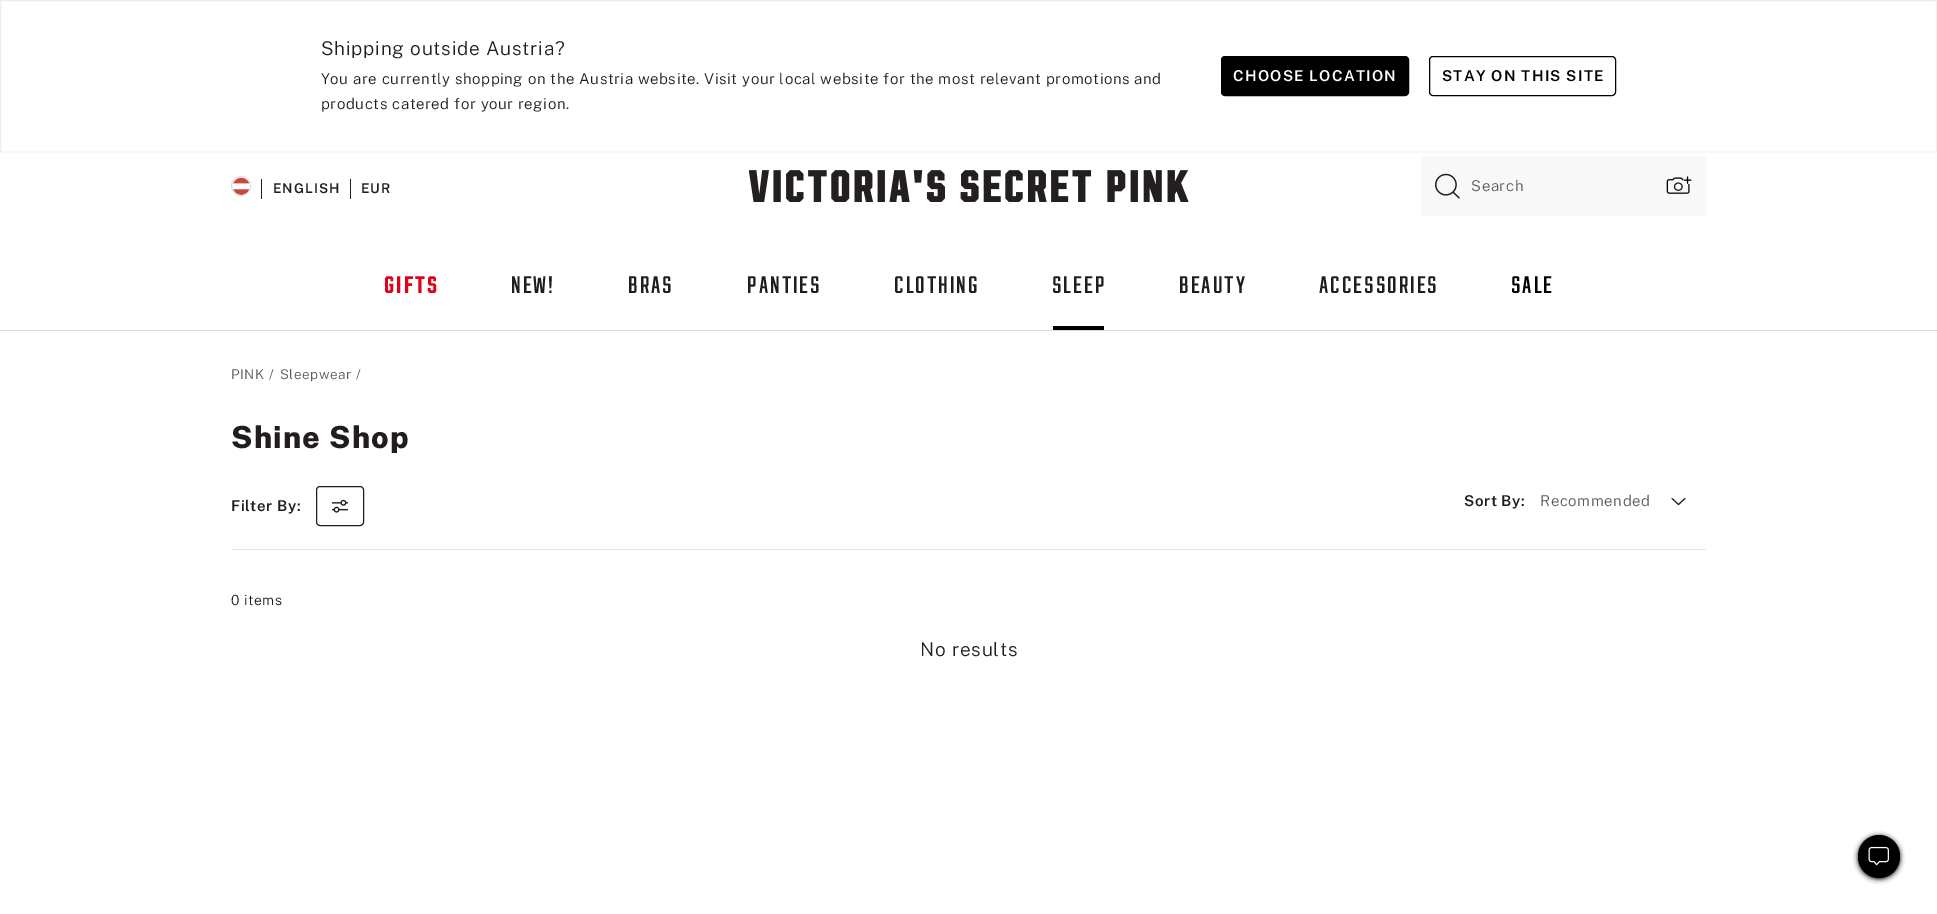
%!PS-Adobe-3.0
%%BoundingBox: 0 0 1937 914
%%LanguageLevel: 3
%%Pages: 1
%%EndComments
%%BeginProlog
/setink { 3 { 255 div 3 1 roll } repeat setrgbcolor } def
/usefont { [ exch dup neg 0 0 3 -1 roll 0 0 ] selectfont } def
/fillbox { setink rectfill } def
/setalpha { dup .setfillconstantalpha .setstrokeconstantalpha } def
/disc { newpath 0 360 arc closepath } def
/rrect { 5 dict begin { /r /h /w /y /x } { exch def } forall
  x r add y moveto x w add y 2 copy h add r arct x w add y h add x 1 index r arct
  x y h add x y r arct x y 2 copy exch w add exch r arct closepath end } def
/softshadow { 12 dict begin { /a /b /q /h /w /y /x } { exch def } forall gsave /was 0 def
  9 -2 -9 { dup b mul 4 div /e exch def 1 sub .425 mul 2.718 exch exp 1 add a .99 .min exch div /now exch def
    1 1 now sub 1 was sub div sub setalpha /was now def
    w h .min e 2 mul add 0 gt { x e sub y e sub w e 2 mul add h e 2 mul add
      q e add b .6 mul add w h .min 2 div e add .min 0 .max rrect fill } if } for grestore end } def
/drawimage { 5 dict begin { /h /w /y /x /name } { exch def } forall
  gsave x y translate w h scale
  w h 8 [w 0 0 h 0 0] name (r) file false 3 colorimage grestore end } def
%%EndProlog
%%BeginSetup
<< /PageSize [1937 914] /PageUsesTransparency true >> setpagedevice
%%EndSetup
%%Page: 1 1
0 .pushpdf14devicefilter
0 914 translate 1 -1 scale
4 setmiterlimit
0 0 1937 914 255 255 255 fillbox
0 0 1937 2 249 226 231 fillbox
255 255 255 setink
0 0 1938 153 2.5 rrect fill
245 245 246 setink
1.2 setlinewidth
1936.5 151.5 moveto 1935 152 lineto 2.5 152 lineto 1 151.5 lineto stroke
239 236 234 setink
1 151.5 moveto 0.5 150 lineto 0.5 2.5 lineto 0.5 1.5 1.5 0.5 2.5 0.5 curveto 1935 0.5 lineto 1936 0.5 1937 1.5 1937 2.5 curveto 1937 150 lineto 1936.5 151.5 lineto stroke
/PublicSans-Light 19 usefont
34 29 29 setink
321 55 moveto 0.75 0 (Shipping outside Austria?) ashow
/PublicSans-Light 15 usefont
321 84 moveto 0.6 0 (You are currently shopping on the Austria website. Visit your local website for the most relevant promotions and) ashow
321 109 moveto 0.6 0 (products catered for your region.) ashow
0 0 0 setink
1221.5 56.5 187 39 3.5 rrect gsave fill grestore
1 setlinewidth
stroke
/PublicSans-SemiBold 15 usefont
255 255 255 setink
1233 81 moveto 1.25 0 (CHOOSE LOCATION) ashow
0 0 0 setink
1429.5 56.5 186 39 3.5 rrect stroke
1442 81 moveto 1.25 0 (STAY ON THIS SITE) ashow
224 218 213 setink
241 186 9.5 disc stroke
(assets/img1.rgb) 233 177 17 18 drawimage
261 179 1 20 34 29 29 fillbox
/PublicSans-SemiBold 13.5 usefont
273 193 moveto 1 0 (ENGLISH) ashow
350 179 1 20 34 29 29 fillbox
361 193 moveto 1 0 (EUR) ashow
(assets/img2.rgb) 749 170 440 32 drawimage
249 248 249 setink
1421 156 285 60 2.5 rrect fill
(assets/img3.rgb) 1435 173 25 26 drawimage
/PublicSans-Light 15 usefont
96 88 88 setink
1471 191 moveto 0.6 0 (Search) ashow
(assets/img4.rgb) 1666 176 26 18 drawimage
/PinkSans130-Regular 24 usefont
225 1 28 setink
384 293 moveto 2 0 (GIFTS) ashow
/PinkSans-Medium 24 usefont
34 29 29 setink
511 293 moveto 2 0 (NEW!) ashow
628 293 moveto 2 0 (BRAS) ashow
747 293 moveto 2 0 (PANTIES) ashow
894 293 moveto 2 0 (CLOTHING) ashow
1052 293 moveto 2 0 (SLEEP) ashow
1053 326 51 4 0 0 0 fillbox
34 29 29 setink
1179 293 moveto 2 0 (BEAUTY) ashow
1319 293 moveto 2 0 (ACCESSORIES) ashow
0 0 0 setink
1511 293 moveto 2 0 (SALE) ashow
0 330 1937 1 224 218 213 fillbox
/PublicSans-Light 13.5 usefont
96 88 88 setink
231 379 moveto 0.5 0 (PINK) ashow
269 379 moveto 0.5 0 (/) ashow
280 379 moveto 0.5 0 (Sleepwear) ashow
356 379 moveto 0.5 0 (/) ashow
/PublicSans-ExtraBold 30.5 usefont
34 29 29 setink
231 448 moveto 1.25 0 (Shine Shop) ashow
231 549 1475 1 232 227 223 fillbox
/PublicSans-SemiBold 15 usefont
34 29 29 setink
231 511 moveto 0.6 0 (Filter By:) ashow
316.5 486.5 47 39 3.5 rrect stroke
(assets/img5.rgb) 332 499 16 14 drawimage
1464 506 moveto 0.6 0 (Sort By:) ashow
/PublicSans-Light 15 usefont
96 88 88 setink
1540 506 moveto 0.6 0 (Recommended) ashow
34 29 29 setink
1 setlinecap
1685 498.5 moveto 1678.5 504.5 lineto 1672 498.5 lineto stroke
/PublicSans-Light 14 usefont
231 605 moveto 0.5 0 (0 items) ashow
/PublicSans-Light 19 usefont
920 656 moveto 0.75 0 (No results) ashow
0 0 0 setink
1858 836 42 43 21 2.5 1 softshadow
1858 835 42 43 21 rrect fill
(assets/img6.rgb) 1868 846 21 20 drawimage
.poppdf14devicefilter showpage
%%EOF
